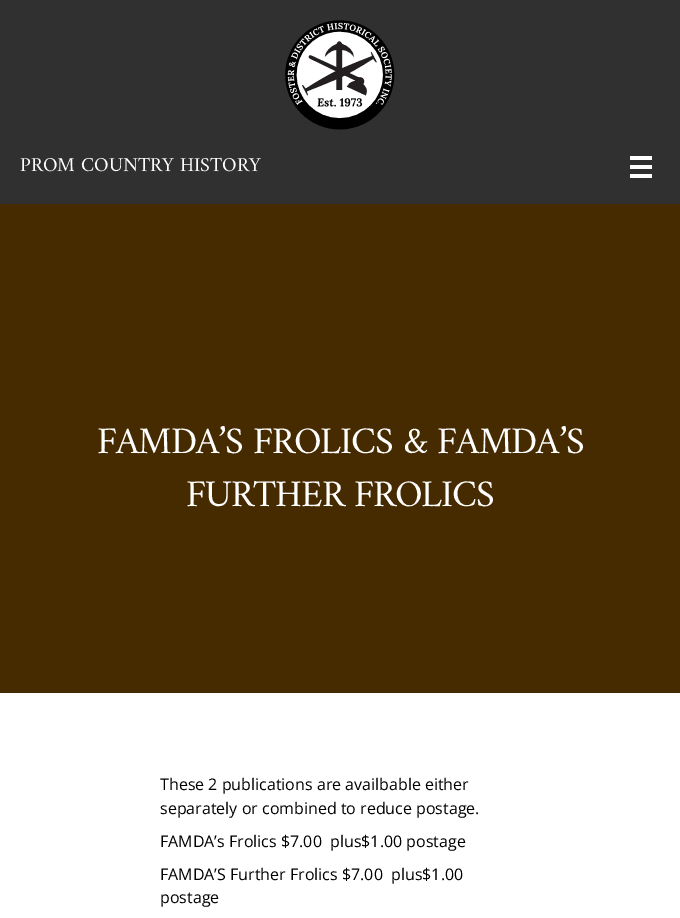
%!PS-Adobe-3.0
%%BoundingBox: 0 0 680 918
%%LanguageLevel: 3
%%Pages: 1
%%EndComments
%%BeginProlog
/setink { 3 { 255 div 3 1 roll } repeat setrgbcolor } def
/usefont { [ exch dup neg 0 0 3 -1 roll 0 0 ] selectfont } def
/drawtext { setink usefont moveto show } def
/fillbox { setink rectfill } def
/drawimage { 5 dict begin { /h /w /y /x /name } { exch def } forall
  gsave x y translate w h scale
  w h 8 [w 0 0 h 0 0] name (r) file false 3 colorimage grestore end } def
%%EndProlog
%%BeginSetup
<< /PageSize [680 918] >> setpagedevice
%%EndSetup
%%Page: 1 1
0 918 translate 1 -1 scale
4 setmiterlimit
0 0 680 918 255 255 255 fillbox
0 0 680 204 48 48 48 fillbox
(assets/img1.rgb) 285 20 110 110 drawimage
(PROM COUNTRY HISTORY) 20 171 /Amiri-Regular 20 255 255 255 drawtext
630 156 22 4 255 255 255 fillbox
630 165 22 4 255 255 255 fillbox
630 174 22 4 255 255 255 fillbox
0 204 680 489 70 43 0 fillbox
/Amiri-Regular 38 usefont
255 255 255 setink
97 453 moveto -1 0 (FAMDA’S FROLICS & FAMDA’S) ashow
186 506 moveto -1 0 (FURTHER FROLICS) ashow
(These 2 publications are availbable either) 160 790 /OpenSans-Regular 16 0 0 0 drawtext
(separately or combined to reduce postage.) 160 814 /OpenSans-Regular 16 0 0 0 drawtext
(FAMDA’s Frolics $7.00  plus$1.00 postage) 160 847 /OpenSans-Regular 16 0 0 0 drawtext
(FAMDA’S Further Frolics $7.00  plus$1.00) 160 880 /OpenSans-Regular 16 0 0 0 drawtext
(postage) 160 903 /OpenSans-Regular 16 0 0 0 drawtext
showpage
%%EOF
